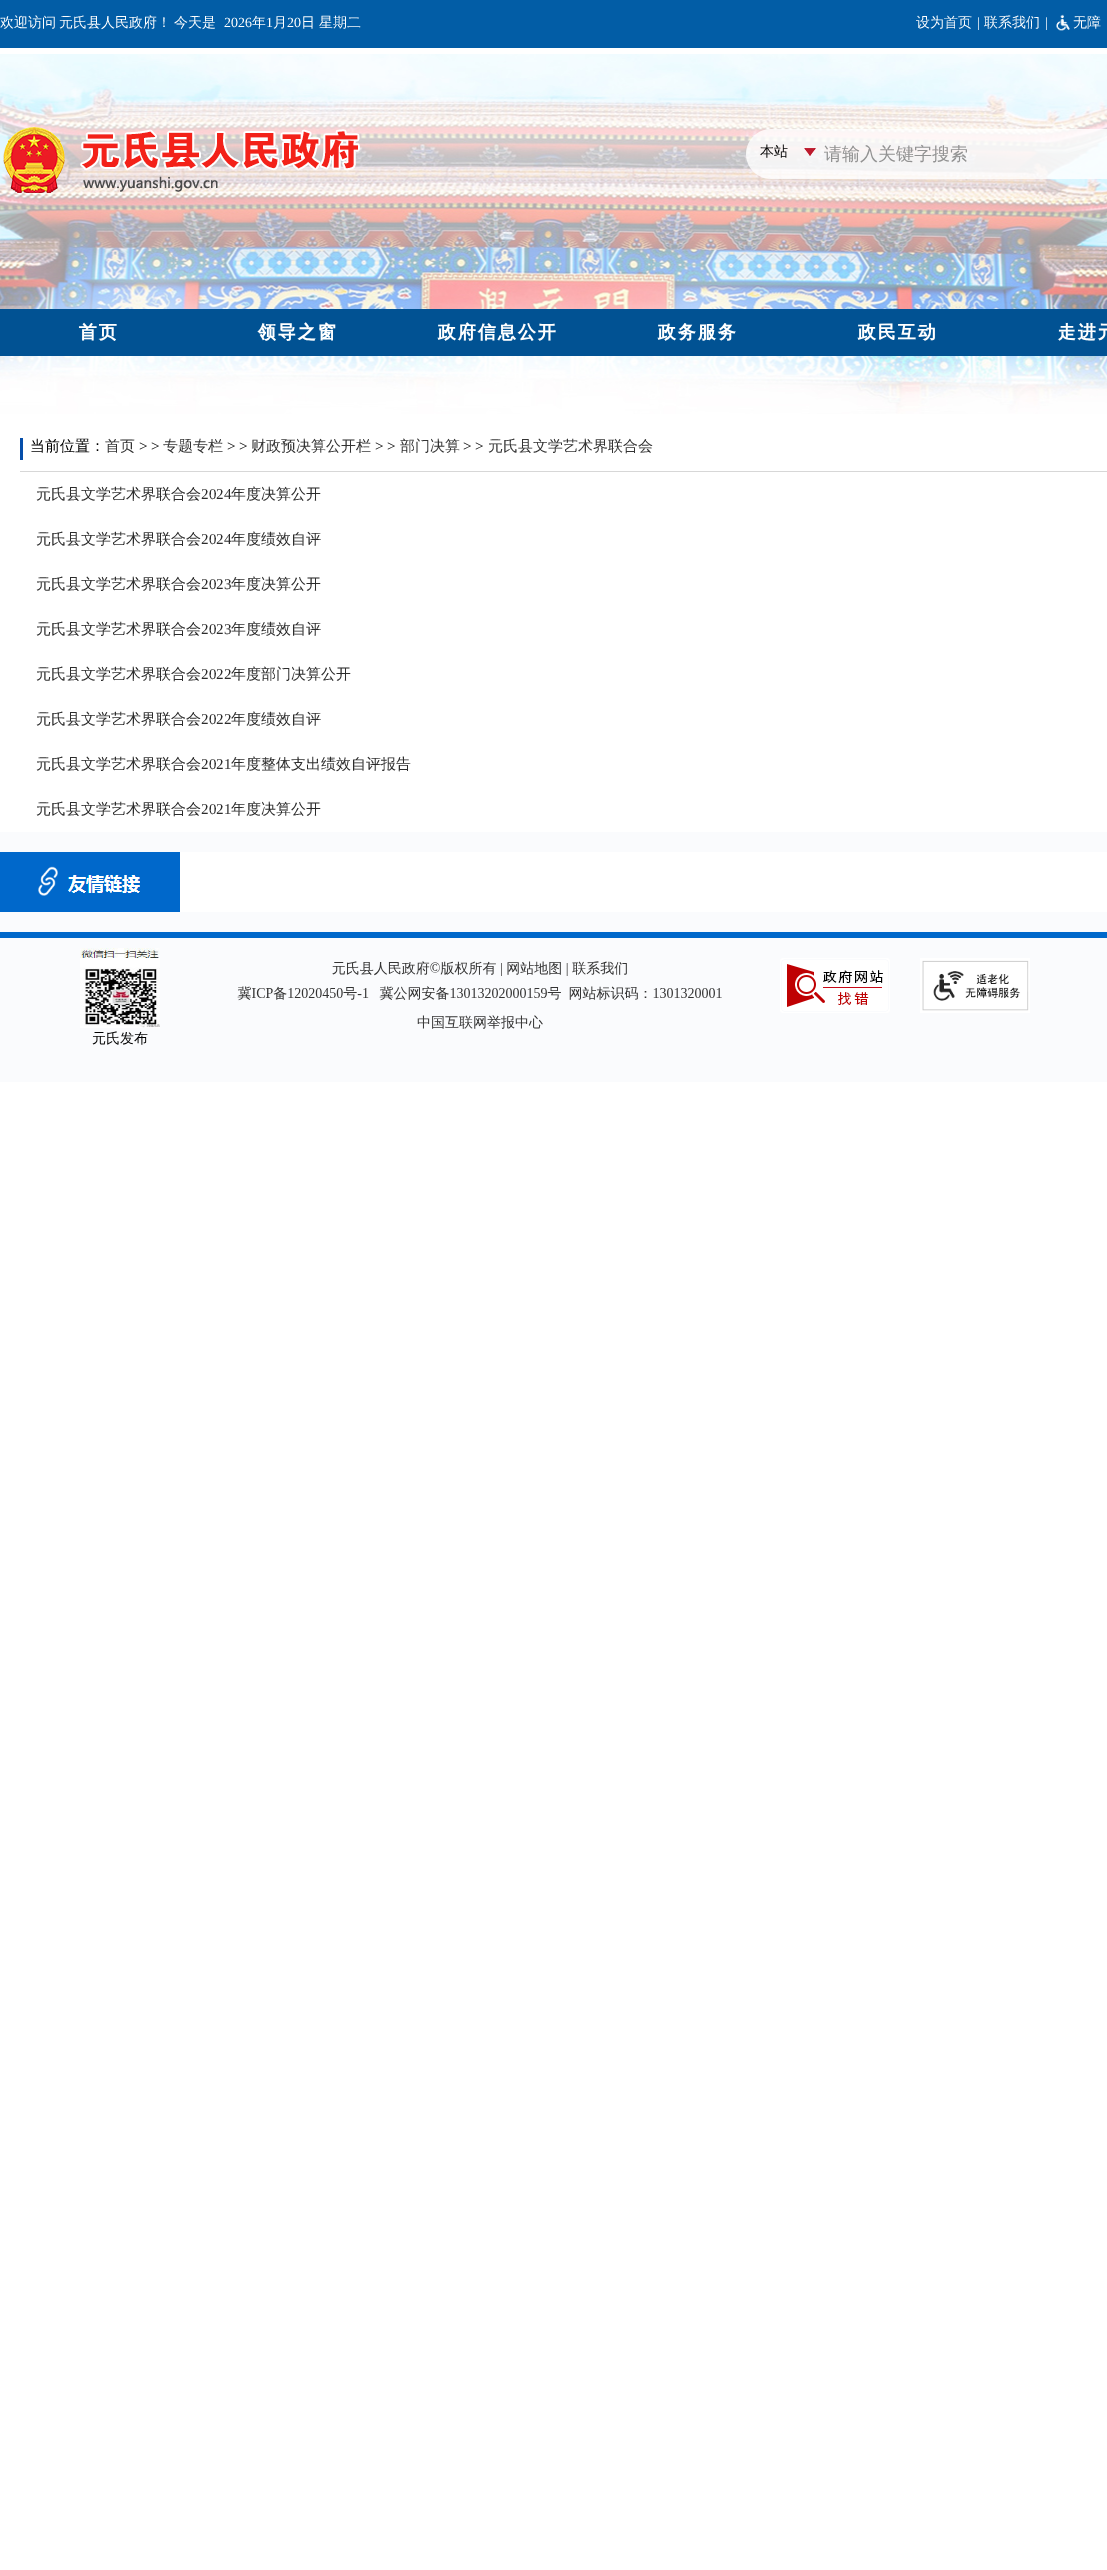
%!PS-Adobe-3.0
%%BoundingBox: 0 0 1107 2570
%%LanguageLevel: 3
%%Pages: 1
%%EndComments
%%BeginProlog
/setink { 3 { 255 div 3 1 roll } repeat setrgbcolor } def
/usefont { [ exch dup neg 0 0 3 -1 roll 0 0 ] selectfont } def
/drawtext { setink usefont moveto show } def
/fillbox { setink rectfill } def
/drawimage { 5 dict begin { /h /w /y /x /name } { exch def } forall
  gsave x y translate w h scale
  w h 8 [w 0 0 h 0 0] name (r) file false 3 colorimage grestore end } def
%%EndProlog
%%BeginSetup
<< /PageSize [1107 2570] >> setpagedevice
%%EndSetup
%%Page: 1 1
0 2570 translate 1 -1 scale
4 setmiterlimit
0 0 1107 2570 255 255 255 fillbox
0 0 1107 48 2 93 166 fillbox
(欢迎访问) 0 27 /WenQuanYiZenHei-Medium 14 255 255 255 drawtext
59 27 moveto -1 0 32 (元氏县人民政府！ 今天是) widthshow
(2026) 224 27 /LiberationSerif-Regular 14 255 255 255 drawtext
(年) 252 27 /WenQuanYiZenHei-Medium 14 255 255 255 drawtext
(1) 266 27 /LiberationSerif-Regular 14 255 255 255 drawtext
(月) 273 27 /WenQuanYiZenHei-Medium 14 255 255 255 drawtext
(20) 287 27 /LiberationSerif-Regular 14 255 255 255 drawtext
(日) 301 27 /WenQuanYiZenHei-Medium 14 255 255 255 drawtext
(星期二) 319 27 /WenQuanYiZenHei-Medium 14 255 255 255 drawtext
(设为首页) 916 27 /WenQuanYiZenHei-Medium 14 255 255 255 drawtext
(|) 977 27 /LiberationSerif-Regular 14 255 255 255 drawtext
(联系我们) 984 27 /WenQuanYiZenHei-Medium 14 255 255 255 drawtext
(|) 1045 27 /LiberationSerif-Regular 14 255 255 255 drawtext
(assets/img1.rgb) 1056 14 14 17 drawimage
(无障) 1073 27 /WenQuanYiZenHei-Medium 14 255 255 255 drawtext
(assets/img2.rgb) 0 54 1107 360 drawimage
(assets/img3.rgb) 20 438 1087 34 drawimage
(当前位置：) 30 451 /WenQuanYiZenHei-Medium 15 0 0 0 drawtext
(首页) 105 451 /WenQuanYiZenHei-Medium 15 51 51 51 drawtext
(> >) 139 451 /LiberationSerif-Regular 15 0 0 0 drawtext
(专题专栏) 163 451 /WenQuanYiZenHei-Medium 15 51 51 51 drawtext
(> >) 227 451 /LiberationSerif-Regular 15 0 0 0 drawtext
(财政预决算公开栏) 251 451 /WenQuanYiZenHei-Medium 15 51 51 51 drawtext
(> >) 375 451 /LiberationSerif-Regular 15 0 0 0 drawtext
(部门决算) 400 451 /WenQuanYiZenHei-Medium 15 51 51 51 drawtext
(> >) 463 451 /LiberationSerif-Regular 15 0 0 0 drawtext
(元氏县文学艺术界联合会) 488 451 /WenQuanYiZenHei-Medium 15 51 51 51 drawtext
(元氏县文学艺术界联合会) 36 499 /WenQuanYiZenHei-Medium 15 44 44 44 drawtext
(2024) 201 499 /LiberationSerif-Regular 15 44 44 44 drawtext
(年度决算公开) 231 499 /WenQuanYiZenHei-Medium 15 44 44 44 drawtext
(元氏县文学艺术界联合会) 36 544 /WenQuanYiZenHei-Medium 15 44 44 44 drawtext
(2024) 201 544 /LiberationSerif-Regular 15 44 44 44 drawtext
(年度绩效自评) 231 544 /WenQuanYiZenHei-Medium 15 44 44 44 drawtext
(元氏县文学艺术界联合会) 36 589 /WenQuanYiZenHei-Medium 15 44 44 44 drawtext
(2023) 201 589 /LiberationSerif-Regular 15 44 44 44 drawtext
(年度决算公开) 231 589 /WenQuanYiZenHei-Medium 15 44 44 44 drawtext
(元氏县文学艺术界联合会) 36 634 /WenQuanYiZenHei-Medium 15 44 44 44 drawtext
(2023) 201 634 /LiberationSerif-Regular 15 44 44 44 drawtext
(年度绩效自评) 231 634 /WenQuanYiZenHei-Medium 15 44 44 44 drawtext
(元氏县文学艺术界联合会) 36 679 /WenQuanYiZenHei-Medium 15 44 44 44 drawtext
(2022) 201 679 /LiberationSerif-Regular 15 44 44 44 drawtext
(年度部门决算公开) 231 679 /WenQuanYiZenHei-Medium 15 44 44 44 drawtext
(元氏县文学艺术界联合会) 36 724 /WenQuanYiZenHei-Medium 15 44 44 44 drawtext
(2022) 201 724 /LiberationSerif-Regular 15 44 44 44 drawtext
(年度绩效自评) 231 724 /WenQuanYiZenHei-Medium 15 44 44 44 drawtext
(元氏县文学艺术界联合会) 36 769 /WenQuanYiZenHei-Medium 15 44 44 44 drawtext
(2021) 201 769 /LiberationSerif-Regular 15 44 44 44 drawtext
(年度整体支出绩效自评报告) 231 769 /WenQuanYiZenHei-Medium 15 44 44 44 drawtext
(元氏县文学艺术界联合会) 36 814 /WenQuanYiZenHei-Medium 15 44 44 44 drawtext
(2021) 201 814 /LiberationSerif-Regular 15 44 44 44 drawtext
(年度决算公开) 231 814 /WenQuanYiZenHei-Medium 15 44 44 44 drawtext
(assets/img4.rgb) 0 832 1107 250 drawimage
showpage
%%EOF
